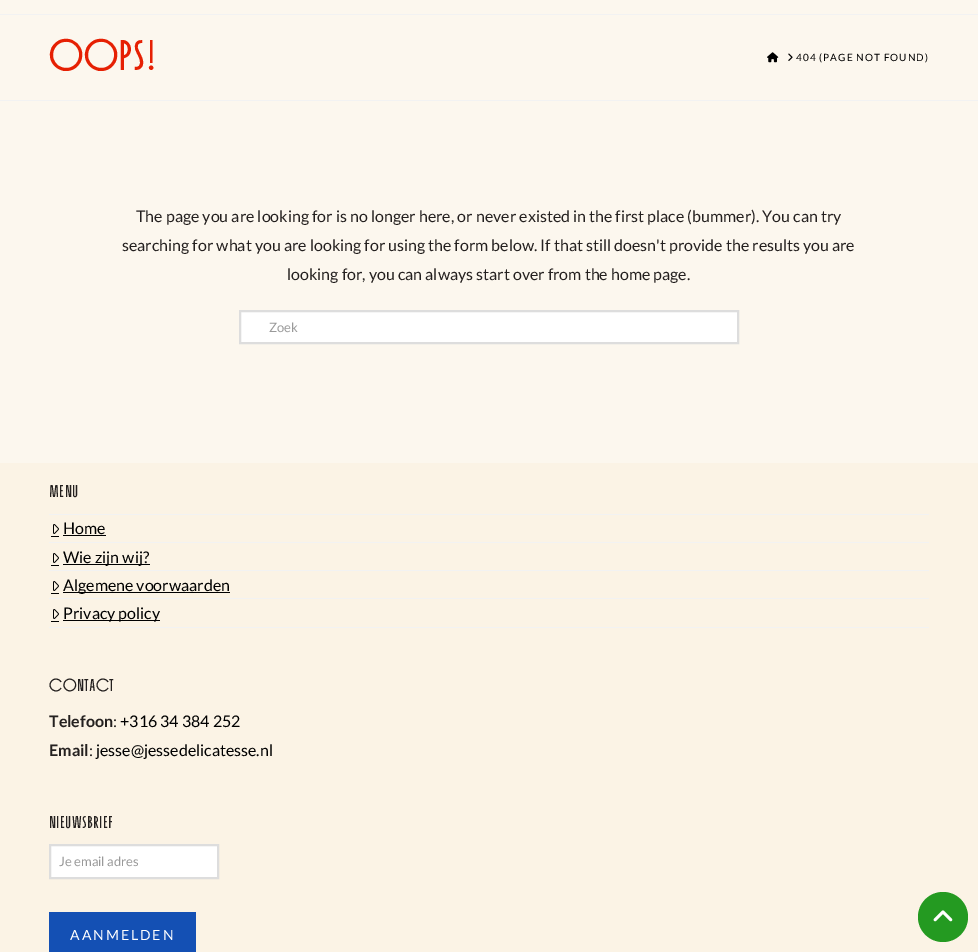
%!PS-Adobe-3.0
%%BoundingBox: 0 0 978 952
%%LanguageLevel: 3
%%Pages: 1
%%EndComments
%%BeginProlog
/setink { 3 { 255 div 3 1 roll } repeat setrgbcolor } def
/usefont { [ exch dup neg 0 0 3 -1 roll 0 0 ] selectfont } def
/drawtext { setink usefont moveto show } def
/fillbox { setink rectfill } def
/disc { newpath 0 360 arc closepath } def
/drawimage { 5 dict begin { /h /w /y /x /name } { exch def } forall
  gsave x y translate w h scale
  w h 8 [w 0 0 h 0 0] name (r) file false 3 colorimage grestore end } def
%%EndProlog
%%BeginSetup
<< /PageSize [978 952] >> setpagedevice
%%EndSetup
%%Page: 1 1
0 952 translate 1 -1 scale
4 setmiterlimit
0 0 978 952 252 247 238 fillbox
0 14 978 1 242 242 242 fillbox
0 100 978 1 242 242 242 fillbox
/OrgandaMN-Bold 45 usefont
230 32 3 setink
49 70 moveto 0.5 0 (OOPS!) ashow
(assets/img1.rgb) 767 52 12 11 drawimage
(assets/img2.rgb) 788 53 5 8 drawimage
/Lato-Regular 10 usefont
0 0 0 setink
796 61 moveto 1 0 (404 \(PAGE NOT FOUND\)) ashow
(The page you are looking for is no longer here, or never existed in the first place \(bummer\). You can try) 136 222 /Lato-Regular 16 36 32 31 drawtext
(searching for what you are looking for using the form below. If that still doesn't provide the results you are) 122 251 /Lato-Regular 16 36 32 31 drawtext
(looking for, you can always start over from the home page.) 287 280 /Lato-Regular 16 36 32 31 drawtext
255 255 255 setink
240 311 moveto 738 311 lineto 738 343 lineto 240 343 lineto closepath gsave fill grestore
221 221 221 setink
2 setlinewidth
stroke
(Zoek) 269 332 /Lato-Regular 13 153 153 153 drawtext
0 463 978 489 251 243 229 fillbox
/OrgandaMN-Bold 18 usefont
36 32 31 setink
49 497 moveto 0.25 0 (MENU) ashow
49 627 880 1 242 242 242 fillbox
49 514 880 1 242 242 242 fillbox
51 536 8 1 0 0 0 fillbox
(assets/img3.rgb) 53 524 6 10 drawimage
(Home) 63 534 /Lato-Regular 16 0 0 0 drawtext
63 535 43 1 0 0 0 fillbox
49 542 880 1 242 242 242 fillbox
51 565 8 1 0 0 0 fillbox
(assets/img3.rgb) 53 553 6 10 drawimage
63 564 87 1 0 0 0 fillbox
(Wie zijn wij?) 63 563 /Lato-Regular 16 0 0 0 drawtext
49 570 880 1 242 242 242 fillbox
51 593 8 1 0 0 0 fillbox
(assets/img3.rgb) 53 581 6 10 drawimage
63 592 167 1 0 0 0 fillbox
(Algemene voorwaarden) 63 591 /Lato-Regular 16 0 0 0 drawtext
49 598 880 1 242 242 242 fillbox
51 621 8 1 0 0 0 fillbox
(assets/img3.rgb) 53 609 6 10 drawimage
63 620 97 1 0 0 0 fillbox
(Privacy policy) 63 619 /Lato-Regular 16 0 0 0 drawtext
/OrgandaMN-Bold 18 usefont
36 32 31 setink
49 691 moveto 0.25 0 (CONTACT) ashow
(Telefoon) 49 727 /Lato-Bold 16 36 32 31 drawtext
(:) 113 727 /Lato-Regular 16 36 32 31 drawtext
(+316 34 384 252) 120 727 /Lato-Regular 16 0 0 0 drawtext
(Email) 49 756 /Lato-Bold 16 36 32 31 drawtext
(:) 89 756 /Lato-Regular 16 36 32 31 drawtext
(jesse@jessedelicatesse.nl) 96 756 /Lato-Regular 16 0 0 0 drawtext
/OrgandaMN-Bold 18 usefont
36 32 31 setink
49 828 moveto 0.25 0 (NIEUWSBRIEF) ashow
255 255 255 setink
50 845 moveto 218 845 lineto 218 878 lineto 50 878 lineto closepath gsave fill grestore
221 221 221 setink
stroke
(Je email adres) 59 866 /Lato-Regular 13 153 153 153 drawtext
49 912 147 40 20 80 180 fillbox
/Lato-Regular 14 usefont
255 255 255 setink
70 940 moveto 2 0 (AANMELDEN) ashow
36 154 33 setink
943 917 25 disc fill
(assets/img4.rgb) 933 910 20 12 drawimage
showpage
%%EOF
